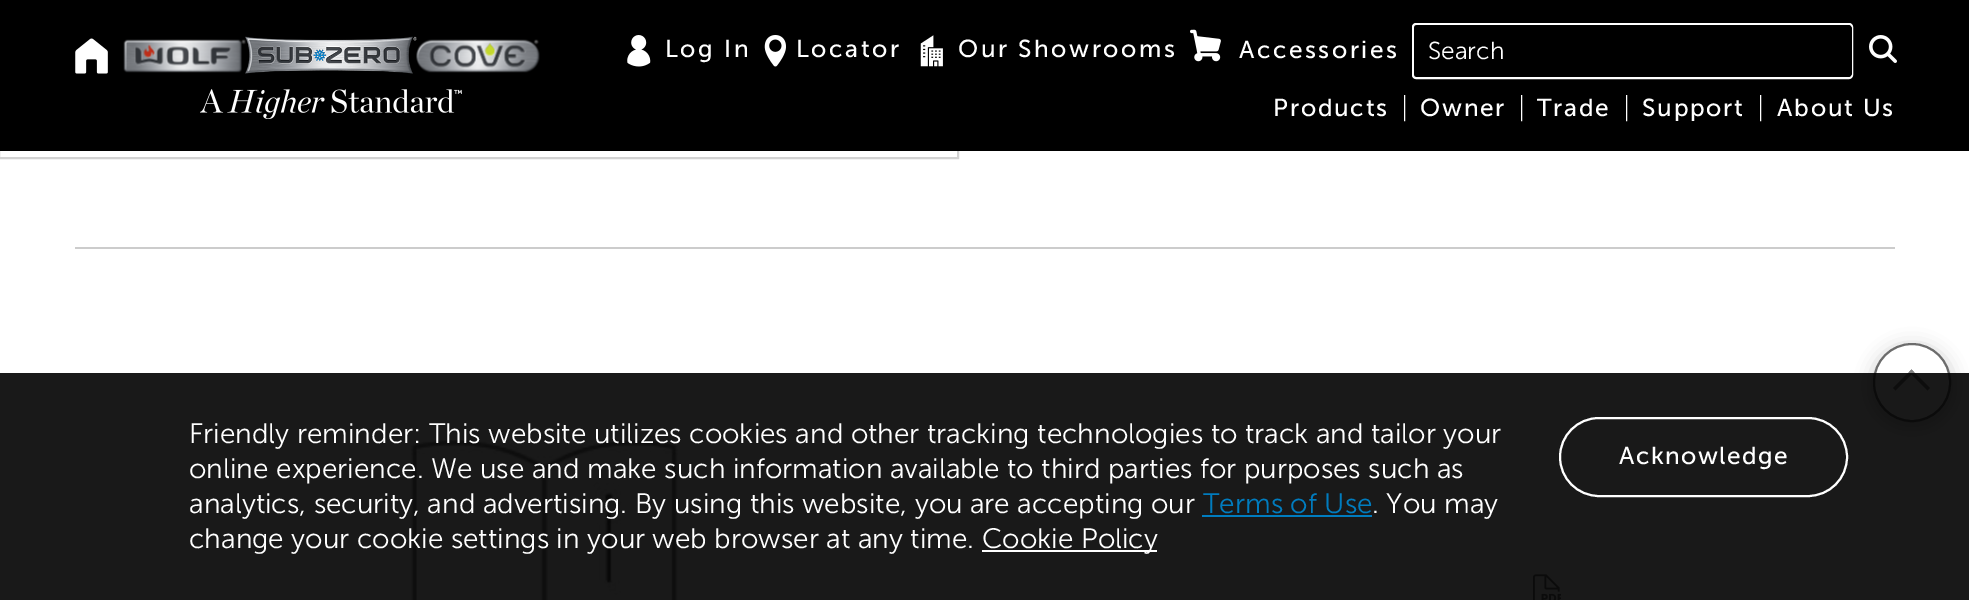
%!PS-Adobe-3.0
%%BoundingBox: 0 0 1969 600
%%LanguageLevel: 3
%%Pages: 1
%%EndComments
%%BeginProlog
/setink { 3 { 255 div 3 1 roll } repeat setrgbcolor } def
/usefont { [ exch dup neg 0 0 3 -1 roll 0 0 ] selectfont } def
/drawtext { setink usefont moveto show } def
/fillbox { setink rectfill } def
/setalpha { dup .setfillconstantalpha .setstrokeconstantalpha } def
/rrect { 5 dict begin { /r /h /w /y /x } { exch def } forall
  x r add y moveto x w add y 2 copy h add r arct x w add y h add x 1 index r arct
  x y h add x y r arct x y 2 copy exch w add exch r arct closepath end } def
/softshadow { 12 dict begin { /a /b /q /h /w /y /x } { exch def } forall gsave /was 0 def
  9 -2 -9 { dup b mul 4 div /e exch def 1 sub .425 mul 2.718 exch exp 1 add a .99 .min exch div /now exch def
    1 1 now sub 1 was sub div sub setalpha /was now def
    w h .min e 2 mul add 0 gt { x e sub y e sub w e 2 mul add h e 2 mul add
      q e add b .6 mul add w h .min 2 div e add .min 0 .max rrect fill } if } for grestore end } def
/drawimage { 5 dict begin { /h /w /y /x /name } { exch def } forall
  gsave x y translate w h scale
  w h 8 [w 0 0 h 0 0] name (r) file false 3 colorimage grestore end } def
%%EndProlog
%%BeginSetup
<< /PageSize [1969 600] /PageUsesTransparency true >> setpagedevice
%%EndSetup
%%Page: 1 1
0 .pushpdf14devicefilter
0 600 translate 1 -1 scale
4 setmiterlimit
0 0 1969 600 255 255 255 fillbox
210 210 210 setink
2 setlinewidth
-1 -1 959 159 rectstroke
75 247 1820 2 204 204 204 fillbox
(assets/img1.rgb) 411 440 267 160 drawimage
(assets/img2.rgb) 1533 574 28 26 drawimage
0 0 1969 151 0 0 0 fillbox
(assets/img3.rgb) 75 38 33 36 drawimage
(assets/img4.rgb) 123 39 123 34 drawimage
(assets/img5.rgb) 245 36 172 38 drawimage
(assets/img6.rgb) 416 39 124 34 drawimage
(assets/img7.rgb) 200 89 262 30 drawimage
(assets/img8.rgb) 627 35 24 32 drawimage
/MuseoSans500-Regular 24.5 usefont
255 255 255 setink
665 57 moveto 2.5 0 (Log In) ashow
(assets/img9.rgb) 764 35 22 32 drawimage
796 57 moveto 2.5 0 (Locator) ashow
(assets/img10.rgb) 920 35 23 32 drawimage
958 57 moveto 2.5 0 (Our Showrooms) ashow
(assets/img11.rgb) 1190 29 31 33 drawimage
1239 58 moveto 2.5 0 (Accessories) ashow
1413 24 439 54 3 rrect stroke
0 0 0 setink
1414 25 438 52 4 rrect fill
(Search) 1428 59 /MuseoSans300-Light 24.5 255 255 255 drawtext
(assets/img12.rgb) 1869 35 28 28 drawimage
/MuseoSans500-Regular 24.5 usefont
1273 116 moveto 1.75 0 (Products) ashow
(|) 1401 117 /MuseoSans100-Light 28 255 255 255 drawtext
/MuseoSans500-Regular 24.5 usefont
1420 116 moveto 1.75 0 (Owner) ashow
(|) 1518 117 /MuseoSans100-Light 28 255 255 255 drawtext
/MuseoSans500-Regular 24.5 usefont
1537 116 moveto 1.75 0 (Trade) ashow
(|) 1623 117 /MuseoSans100-Light 28 255 255 255 drawtext
/MuseoSans500-Regular 24.5 usefont
1642 116 moveto 1.75 0 (Support) ashow
(|) 1757 117 /MuseoSans100-Light 28 255 255 255 drawtext
/MuseoSans500-Regular 24.5 usefont
1777 116 moveto 1.75 0 (About Us) ashow
26 26 26 setink
1873 347 78 78 39 9 0.25 softshadow
255 255 255 setink
1874 344 76 77 38 rrect gsave fill grestore
108 108 108 setink
stroke
131 131 131 setink
1895.5 390.5 moveto 1893 388 lineto 1911.5 369.5 lineto 1914 372 lineto closepath fill
1927.5 390.5 moveto 1909 372 lineto 1911.5 369.5 lineto 1930 388 lineto closepath fill
0.9 setalpha
0 373 1969 227 0 0 0 fillbox
1 setalpha
(Friendly reminder: This website utilizes cookies and other tracking technologies to track and tailor your) 189 443 /MuseoSans300-Light 28 255 255 255 drawtext
(online experience. We use and make such information available to third parties for purposes such as) 189 478 /MuseoSans300-Light 28 255 255 255 drawtext
(analytics, security, and advertising. By using this website, you are accepting our) 189 513 /MuseoSans300-Light 28 255 255 255 drawtext
(Terms of Use) 1203 513 /MuseoSans300-Light 28 0 124 191 drawtext
1202 515 170 2 0 124 191 fillbox
(. You may) 1372 513 /MuseoSans300-Light 28 255 255 255 drawtext
(change your cookie settings in your web browser at any time.) 189 548 /MuseoSans300-Light 28 255 255 255 drawtext
982 550 175 2 255 255 255 fillbox
(Cookie Policy) 982 548 /MuseoSans300-Light 28 255 255 255 drawtext
1560 418 287 78 39 rrect stroke
/MuseoSans500-Regular 24.5 usefont
1619 464 moveto 1.4 0 (Acknowledge) ashow
.poppdf14devicefilter showpage
%%EOF
